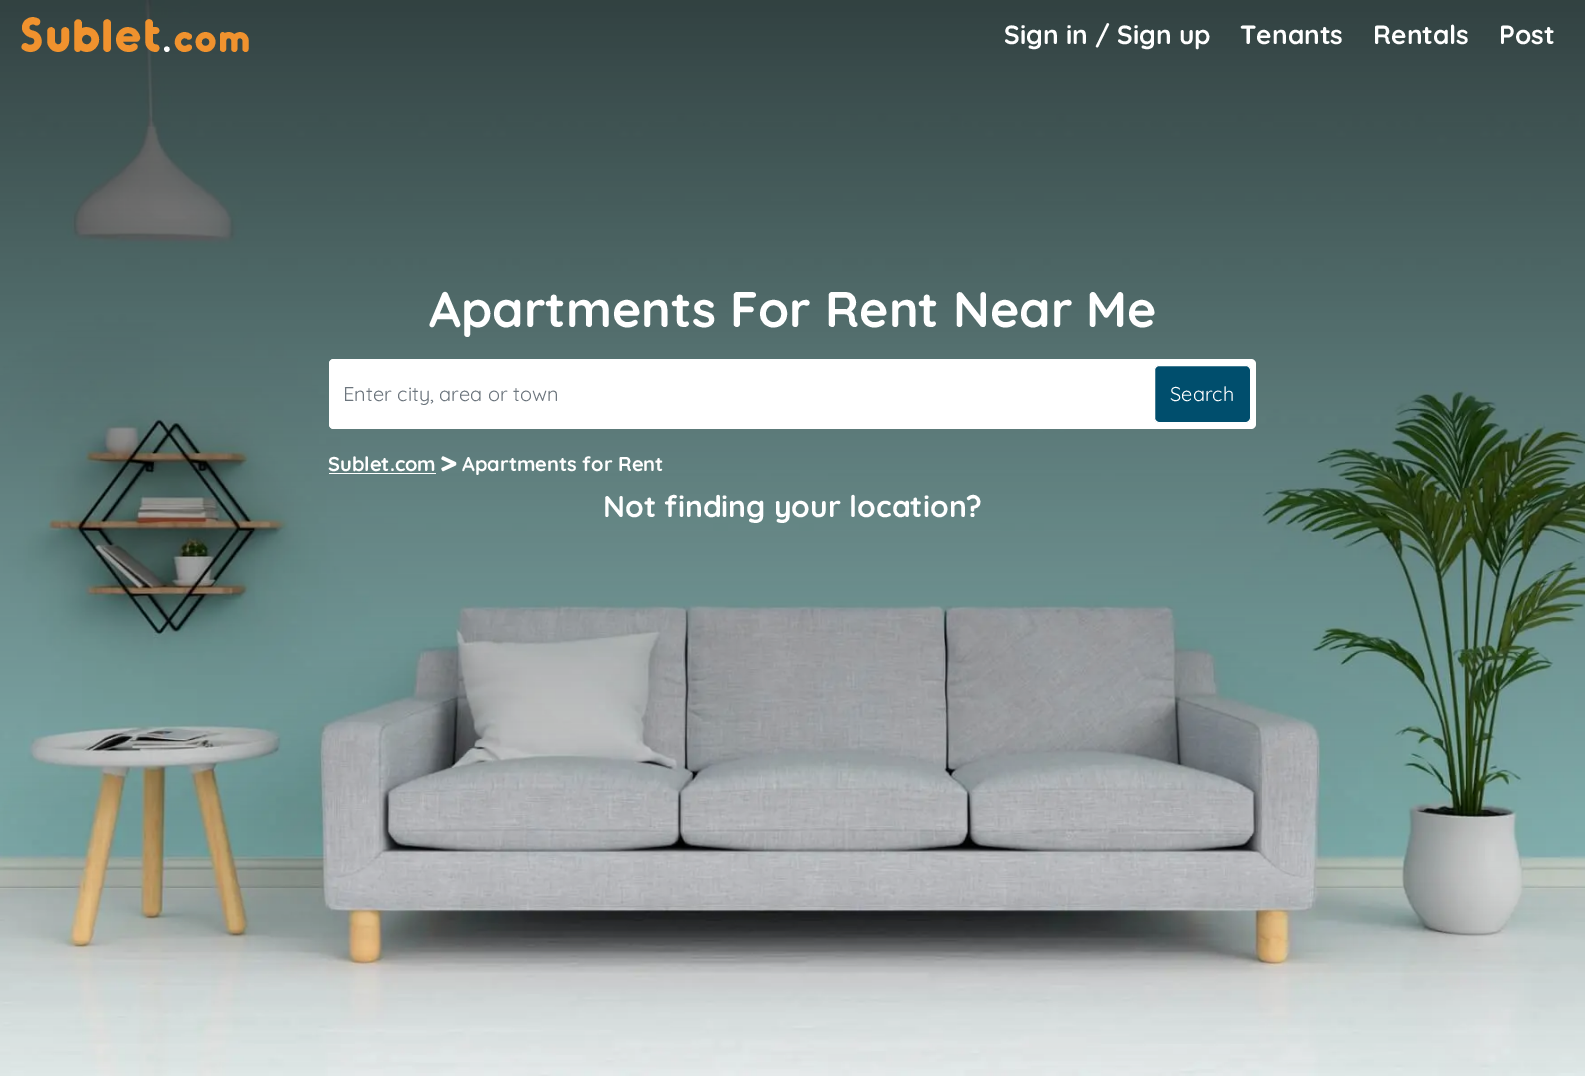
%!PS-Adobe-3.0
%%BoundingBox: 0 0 1585 1076
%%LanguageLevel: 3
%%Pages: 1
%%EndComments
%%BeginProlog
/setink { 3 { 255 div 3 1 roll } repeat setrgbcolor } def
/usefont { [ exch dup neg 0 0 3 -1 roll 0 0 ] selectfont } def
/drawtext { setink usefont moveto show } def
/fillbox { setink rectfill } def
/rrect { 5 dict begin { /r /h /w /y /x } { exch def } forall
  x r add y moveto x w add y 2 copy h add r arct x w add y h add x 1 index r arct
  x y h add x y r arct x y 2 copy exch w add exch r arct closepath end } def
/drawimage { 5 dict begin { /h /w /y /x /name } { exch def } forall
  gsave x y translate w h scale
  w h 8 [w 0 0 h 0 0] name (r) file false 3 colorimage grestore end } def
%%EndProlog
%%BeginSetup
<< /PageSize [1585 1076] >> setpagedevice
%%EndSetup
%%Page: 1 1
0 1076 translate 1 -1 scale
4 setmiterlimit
0 0 1585 1076 255 255 255 fillbox
(assets/img1.rgb) 0 0 1585 1076 drawimage
/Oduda-Bold 50 usefont
240 146 46 setink
20 52 moveto 2.5 0 (Sublet) ashow
/Oduda-Bold 40 usefont
255 255 255 setink
163 52 moveto 2.5 0 (.) ashow
240 146 46 setink
174 52 moveto 2.5 0 (com) ashow
(Sign in / Sign up) 1004 44 /Quicksand-Bold 26.25 255 255 255 drawtext
(Tenants) 1240 44 /Quicksand-Bold 26.25 255 255 255 drawtext
(Rentals) 1373 44 /Quicksand-Bold 26.25 255 255 255 drawtext
(Post) 1499 44 /Quicksand-Bold 26.25 255 255 255 drawtext
(Apartments For Rent Near Me) 429 327 /Quicksand-Bold 50 255 255 255 drawtext
329 359 927 70 5 rrect fill
334 359 moveto 1150 359 lineto 1150 429 lineto 334 429 lineto 331 429 329 427 329 424 curveto 329 364 lineto 329 361 331 359 334 359 curveto closepath fill
(Enter city, area or town) 343 401 /Quicksand-Regular 20 108 117 125 drawtext
0 78 109 setink
1154.5 365.5 96 57 4.5 rrect gsave fill grestore
255 255 255 setink
stroke
(Search) 1170 401 /Quicksand-Regular 20 255 255 255 drawtext
(Sublet.com) 328 471 /Quicksand-Bold 20 255 255 255 drawtext
329 473 107 1 255 255 255 fillbox
(assets/img2.rgb) 441 456 16 16 drawimage
(Apartments for Rent) 462 471 /Quicksand-Bold 20 255 255 255 drawtext
(Not finding your location?) 603 517 /Quicksand-Bold 30 255 255 255 drawtext
showpage
%%EOF
